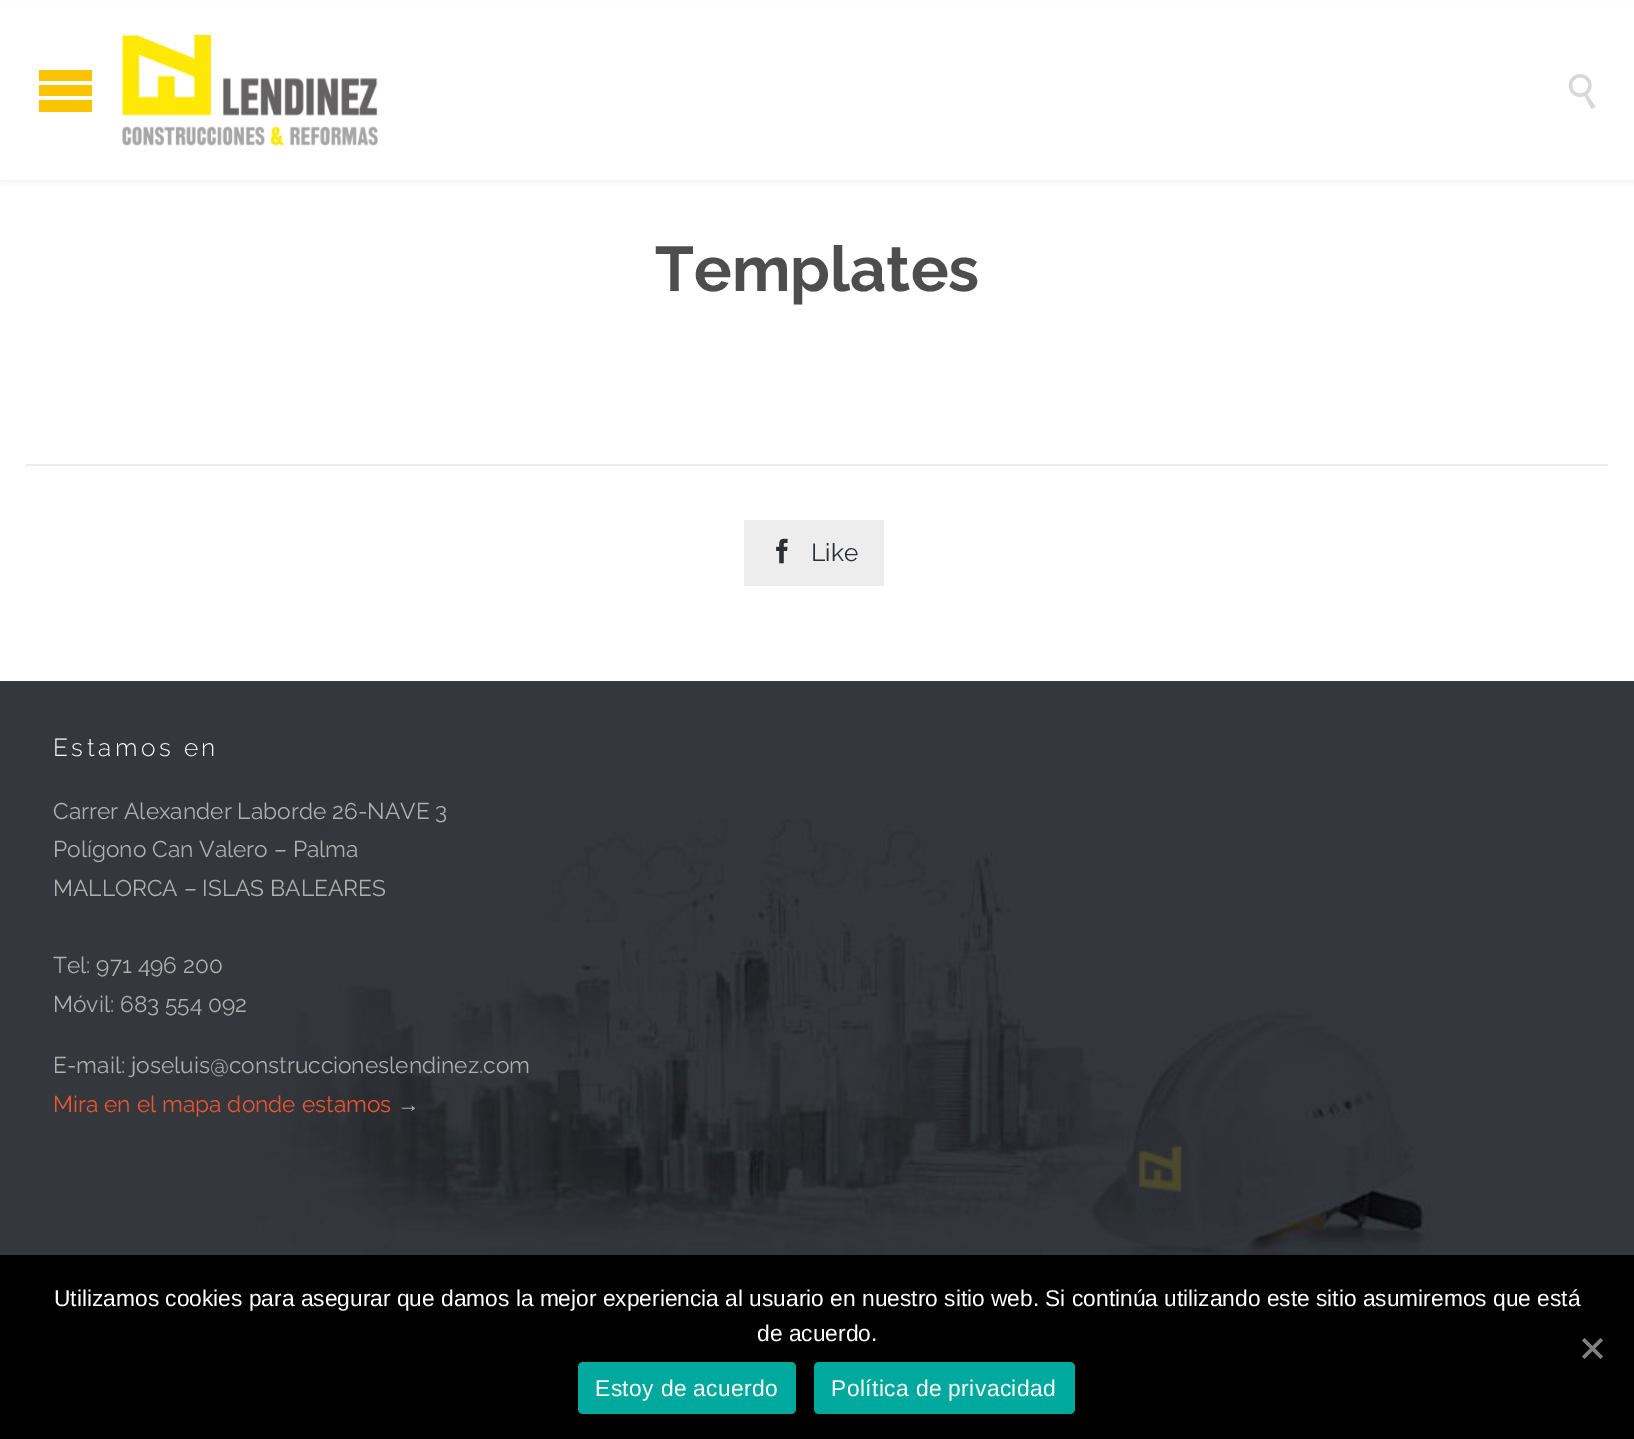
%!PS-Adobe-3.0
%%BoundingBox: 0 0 1634 1439
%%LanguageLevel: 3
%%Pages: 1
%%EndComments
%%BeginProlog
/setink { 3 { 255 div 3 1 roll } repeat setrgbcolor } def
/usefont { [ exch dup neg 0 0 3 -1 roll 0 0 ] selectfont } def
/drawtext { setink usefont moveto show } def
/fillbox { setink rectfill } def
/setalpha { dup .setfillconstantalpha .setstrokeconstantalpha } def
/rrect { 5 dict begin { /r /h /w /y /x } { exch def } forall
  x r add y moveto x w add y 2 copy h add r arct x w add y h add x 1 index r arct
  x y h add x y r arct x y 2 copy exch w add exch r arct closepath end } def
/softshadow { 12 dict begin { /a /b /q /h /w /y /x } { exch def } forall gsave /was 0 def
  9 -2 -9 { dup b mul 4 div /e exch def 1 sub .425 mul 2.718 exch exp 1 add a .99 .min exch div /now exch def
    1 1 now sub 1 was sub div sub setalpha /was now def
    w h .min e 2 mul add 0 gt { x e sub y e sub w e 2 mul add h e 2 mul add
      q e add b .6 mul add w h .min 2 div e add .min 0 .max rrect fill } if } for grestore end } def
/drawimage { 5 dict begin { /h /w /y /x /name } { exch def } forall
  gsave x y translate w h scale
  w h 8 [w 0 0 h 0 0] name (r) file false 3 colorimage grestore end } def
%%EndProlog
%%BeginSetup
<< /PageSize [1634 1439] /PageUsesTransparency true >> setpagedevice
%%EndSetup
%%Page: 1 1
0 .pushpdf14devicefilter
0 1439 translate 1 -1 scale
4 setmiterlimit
0 0 1634 1439 255 255 255 fillbox
0 0 0 setink
0 4 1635 180 0 2 0.04 softshadow
0 3 1634 177 255 255 255 fillbox
250 196 0 setink
39 70 moveto 92 70 lineto 92 81 lineto 39 81 lineto closepath 39 85 moveto 92 85 lineto 92 96 lineto 39 96 lineto closepath 39 100 moveto 92 100 lineto 92 112 lineto 39 112 lineto closepath fill
(assets/img1.rgb) 122 35 256 111 drawimage
(assets/img2.rgb) 1568 74 28 35 drawimage
(Templates) 655 291 /Raleway-Bold 63 77 77 77 drawtext
26 464 1582 2 237 237 237 fillbox
744 520 140 66 2 rrect fill
(assets/img3.rgb) 776 538 12 26 drawimage
(Like) 811 561 /Raleway-Regular 24.5 43 47 52 drawtext
0 681 1634 574 52 55 60 fillbox
(assets/img4.rgb) 99 819 1436 436 drawimage
/Raleway-Light 24.5 usefont
255 255 255 setink
53 756 moveto 3.5 0 (Estamos en) ashow
(Carrer Alexander Laborde 26-NAVE 3) 53 819 /Raleway-Regular 22.75 175 175 175 drawtext
(Polígono Can Valero – Palma) 53 857 /Raleway-Regular 22.75 175 175 175 drawtext
(MALLORCA – ISLAS BALEARES) 53 896 /Raleway-Regular 22.75 175 175 175 drawtext
(Tel: 971 496 200) 53 973 /Raleway-Regular 22.75 175 175 175 drawtext
(Móvil: 683 554 092) 53 1012 /Raleway-Regular 22.75 175 175 175 drawtext
(E-mail: joseluis@construccioneslendinez.com) 53 1073 /Raleway-Regular 22.75 175 175 175 drawtext
(Mira en el mapa donde estamos) 53 1112 /Raleway-Regular 22.75 240 84 45 drawtext
(→) 397 1112 /LiberationSerif-Regular 22.75 175 175 175 drawtext
0 1255 1634 184 0 0 0 fillbox
(Utilizamos cookies para asegurar que damos la mejor experiencia al usuario en nuestro sitio web. Si continúa utilizando este sitio asumiremos que está) 54 1306 /LiberationSans-Regular 22.75 255 255 255 drawtext
(de acuerdo.) 757 1341 /LiberationSans-Regular 22.75 255 255 255 drawtext
128 128 128 setink
1600.5 1338 moveto 1603 1340.5 lineto 1584.5 1359 lineto 1582 1356.5 lineto closepath fill
1582 1340.5 moveto 1584.5 1338 lineto 1603 1356.5 lineto 1600.5 1359 lineto closepath fill
0 169 157 setink
578 1362 218 52 5 rrect fill
255 255 255 setink
595 1396 moveto 0.4 0 (Estoy de acuerdo) ashow
0 169 157 setink
814 1362 261 52 5 rrect fill
255 255 255 setink
831 1396 moveto 0.4 0 (Política de privacidad) ashow
.poppdf14devicefilter showpage
%%EOF
